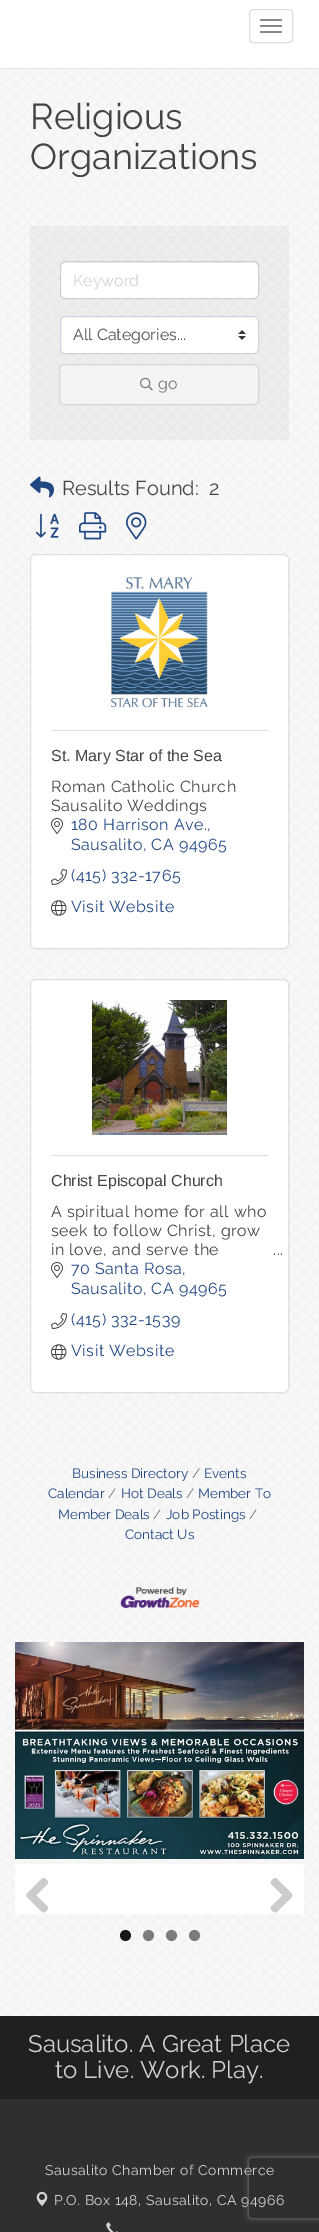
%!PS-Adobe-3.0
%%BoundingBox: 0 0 319 2232
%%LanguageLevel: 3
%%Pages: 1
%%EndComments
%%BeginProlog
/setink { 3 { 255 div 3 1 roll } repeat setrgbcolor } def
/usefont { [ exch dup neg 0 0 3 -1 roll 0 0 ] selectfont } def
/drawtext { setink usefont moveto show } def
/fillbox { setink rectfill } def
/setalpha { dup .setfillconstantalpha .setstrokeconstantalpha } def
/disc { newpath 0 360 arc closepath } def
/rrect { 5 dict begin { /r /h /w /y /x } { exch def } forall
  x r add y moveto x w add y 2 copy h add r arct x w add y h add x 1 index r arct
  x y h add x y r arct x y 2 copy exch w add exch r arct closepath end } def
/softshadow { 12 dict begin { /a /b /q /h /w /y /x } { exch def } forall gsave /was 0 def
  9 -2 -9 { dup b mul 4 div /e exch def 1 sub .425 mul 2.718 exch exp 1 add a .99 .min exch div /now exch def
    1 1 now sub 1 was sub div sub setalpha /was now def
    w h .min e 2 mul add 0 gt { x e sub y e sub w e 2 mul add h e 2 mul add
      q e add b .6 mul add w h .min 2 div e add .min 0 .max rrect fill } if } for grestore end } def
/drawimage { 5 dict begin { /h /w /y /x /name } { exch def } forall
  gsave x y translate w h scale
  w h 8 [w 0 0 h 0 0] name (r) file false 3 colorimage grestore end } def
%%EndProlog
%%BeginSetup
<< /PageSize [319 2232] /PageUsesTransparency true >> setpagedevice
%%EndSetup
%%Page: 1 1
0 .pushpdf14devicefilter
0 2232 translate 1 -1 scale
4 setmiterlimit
0 0 319 2232 243 243 243 fillbox
(assets/img1.rgb) 0 69 319 1947 drawimage
0 0 319 68 255 255 255 fillbox
0 68 319 1 230 230 230 fillbox
221 221 221 setink
249.5 9.5 43 33 3.5 rrect stroke
136 136 136 setink
260 19 22 2 1 rrect fill
260 25 22 2 1 rrect fill
260 31 22 2 1 rrect fill
(Religious) 30 129 /Raleway-Regular 36 68 68 68 drawtext
(Organizations) 30 169 /Raleway-Regular 36 68 68 68 drawtext
0.04 setalpha
30 226 259 214 0 0 0 fillbox
1 setalpha
255 255 255 setink
61 262 197 36 4 rrect fill
0.07 setalpha
0 0 0 setink
65 263 moveto 254 263 lineto 256 263 258 265 258 267 curveto 258 266 lineto 258 264 256 262 254 262 curveto 65 262 lineto 63 262 61 264 61 266 curveto 61 267 lineto 61 265 63 263 65 263 curveto closepath fill
0.12 setalpha
60.5 261.5 198 37 4.5 rrect stroke
1 setalpha
(Keyword) 73 286 /Raleway-Regular 16 210 210 210 drawtext
255 255 255 setink
60 316 199 38 5 rrect fill
(assets/img2.rgb) 238 330 8 10 drawimage
206 212 218 setink
60.5 316.5 198 37 4.5 rrect stroke
(All Categories...) 73 340 /Raleway-Regular 16 73 80 87 drawtext
244 244 244 setink
59 364 200 41 5 rrect fill
0.12 setalpha
0 0 0 setink
59.5 364.5 199 40 4.5 rrect stroke
1 setalpha
(assets/img3.rgb) 140 377 13 14 drawimage
(go) 158 389 /Raleway-Regular 16 119 119 119 drawtext
(assets/img4.rgb) 30 476 24 22 drawimage
(Results Found:) 62 495 /Raleway-Regular 20 68 68 68 drawtext
(2) 209 495 /Raleway-Regular 20 68 68 68 drawtext
(assets/img5.rgb) 35 513 24 25 drawimage
(assets/img6.rgb) 79 512 28 28 drawimage
(assets/img7.rgb) 126 512 21 28 drawimage
255 255 255 setink
30 554 259 395 5 rrect fill
0.12 setalpha
0 0 0 setink
30.5 554.5 258 394 4.5 rrect stroke
1 setalpha
(assets/img8.rgb) 111 577 97 131 drawimage
51 730 217 1 223 223 223 fillbox
(St. Mary Star of the Sea) 51 761 /LiberationSans-Regular 16 68 68 68 drawtext
/Raleway-Regular 16 usefont
51 792 moveto 0.5 0 (Roman Catholic Church) ashow
51 811 moveto 0.5 0 (Sausalito Weddings) ashow
(assets/img9.rgb) 51 818 12 16 drawimage
34 72 132 setink
71 830 moveto 0.5 0 (180 Harrison Ave.,) ashow
71 850 moveto 0.5 0 (Sausalito, CA 94965) ashow
(assets/img10.rgb) 51 869 16 16 drawimage
71 881 moveto 0.5 0 (\(415\) 332-1765) ashow
(assets/img11.rgb) 51 900 16 16 drawimage
71 912 moveto 0.5 0 (Visit Website) ashow
255 255 255 setink
30 979 259 414 5 rrect fill
0.12 setalpha
0 0 0 setink
30.5 979.5 258 413 4.5 rrect stroke
1 setalpha
(assets/img12.rgb) 92 1000 135 135 drawimage
51 1155 217 1 223 223 223 fillbox
(Christ Episcopal Church) 51 1186 /LiberationSans-Regular 16 68 68 68 drawtext
/Raleway-Regular 16 usefont
51 1217 moveto 0.5 0 (A spiritual home for all who) ashow
51 1236 moveto 0.5 0 (seek to follow Christ, grow) ashow
51 1255 moveto 0.5 0 (in love, and serve the) ashow
273 1255 moveto 0.5 0 (...) ashow
(assets/img9.rgb) 51 1262 12 16 drawimage
34 72 132 setink
71 1274 moveto 0.5 0 (70 Santa Rosa,) ashow
71 1294 moveto 0.5 0 (Sausalito, CA 94965) ashow
(assets/img10.rgb) 51 1313 16 16 drawimage
71 1325 moveto 0.5 0 (\(415\) 332-1539) ashow
(assets/img11.rgb) 51 1344 16 16 drawimage
71 1356 moveto 0.5 0 (Visit Website) ashow
(/) 192 1478 /Raleway-Regular 13.5 108 117 125 drawtext
(Events) 204 1478 /Raleway-Regular 13.5 34 72 132 drawtext
(Calendar) 48 1498 /Raleway-Regular 13.5 34 72 132 drawtext
(Business Directory) 72 1478 /Raleway-Regular 13.5 34 72 132 drawtext
(/) 186 1498 /Raleway-Regular 13.5 108 117 125 drawtext
(Member To) 198 1498 /Raleway-Regular 13.5 34 72 132 drawtext
(Member Deals) 58 1519 /Raleway-Regular 13.5 34 72 132 drawtext
(/) 108 1498 /Raleway-Regular 13.5 108 117 125 drawtext
(Hot Deals) 121 1498 /Raleway-Regular 13.5 34 72 132 drawtext
(/) 249 1519 /Raleway-Regular 13.5 108 117 125 drawtext
(Contact Us) 125 1539 /Raleway-Regular 13.5 34 72 132 drawtext
(/) 153 1519 /Raleway-Regular 13.5 108 117 125 drawtext
(Job Postings) 166 1519 /Raleway-Regular 13.5 34 72 132 drawtext
(assets/img13.rgb) 120 1587 80 21 drawimage
(assets/img14.rgb) 15 1642 289 217 drawimage
255 255 255 setink
15 1864 289 50 4 rrect fill
(assets/img15.rgb) 26 1878 22 35 drawimage
(assets/img16.rgb) 270 1878 23 35 drawimage
0.9 setalpha
0 0 0 setink
125.5 1935.5 5.5 disc fill
0.5 setalpha
148.5 1935.5 5.5 disc fill
171.5 1935.5 5.5 disc fill
194.5 1935.5 5.5 disc fill
1 setalpha
0 2016 319 83 32 32 32 fillbox
(Sausalito. A Great Place) 28 2052 /Raleway-Regular 24 210 210 210 drawtext
(to Live. Work. Play.) 55 2078 /Raleway-Regular 24 210 210 210 drawtext
0 2099 319 133 47 47 47 fillbox
/Raleway-Regular 14 usefont
210 210 210 setink
45 2175 moveto 0.5 0 (Sausalito Chamber of Commerce) ashow
(assets/img17.rgb) 36 2191 12 15 drawimage
54 2205 moveto 0.5 0 (P.O. Box 148, Sausalito, CA 94966) ashow
(assets/img18.rgb) 106 2222 12 10 drawimage
gsave
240 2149 moveto 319 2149 lineto 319 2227 lineto 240 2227 lineto closepath 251 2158 moveto 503 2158 lineto 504 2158 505 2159 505 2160 curveto 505 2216 lineto 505 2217 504 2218 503 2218 curveto 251 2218 lineto 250 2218 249 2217 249 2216 curveto 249 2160 lineto 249 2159 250 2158 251 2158 curveto closepath eoclip newpath
128 128 128 setink
249 2158 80 60 2 2.5 1 softshadow
grestore
.poppdf14devicefilter showpage
%%EOF
